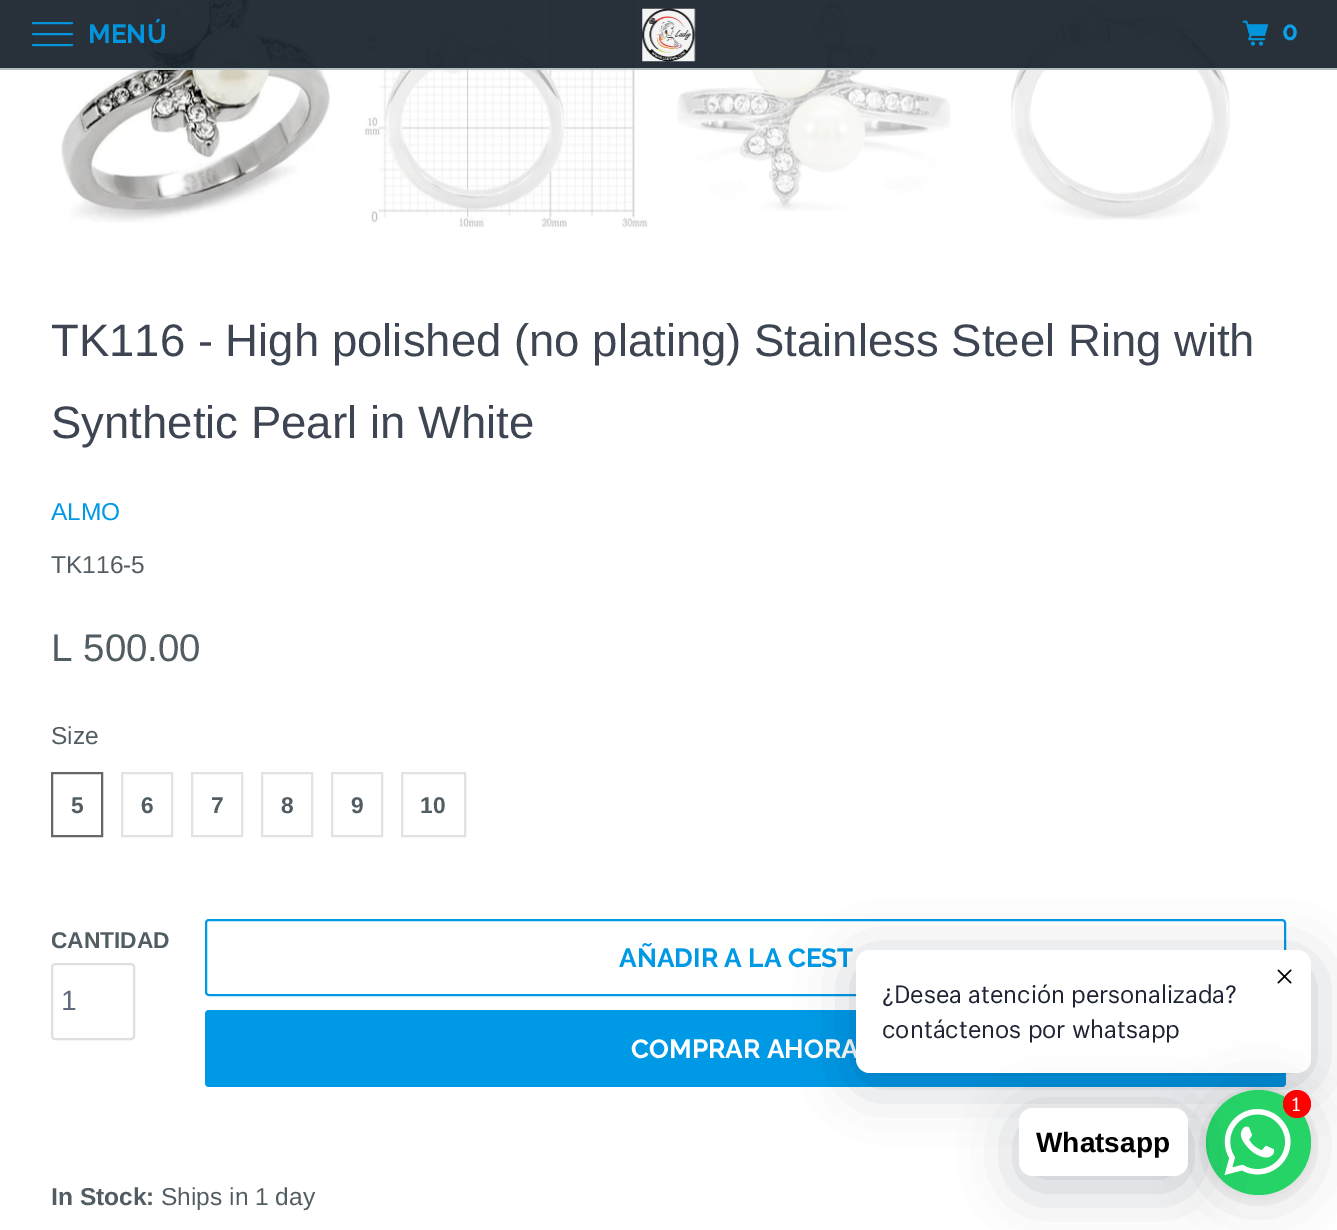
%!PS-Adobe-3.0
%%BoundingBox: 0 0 1337 1230
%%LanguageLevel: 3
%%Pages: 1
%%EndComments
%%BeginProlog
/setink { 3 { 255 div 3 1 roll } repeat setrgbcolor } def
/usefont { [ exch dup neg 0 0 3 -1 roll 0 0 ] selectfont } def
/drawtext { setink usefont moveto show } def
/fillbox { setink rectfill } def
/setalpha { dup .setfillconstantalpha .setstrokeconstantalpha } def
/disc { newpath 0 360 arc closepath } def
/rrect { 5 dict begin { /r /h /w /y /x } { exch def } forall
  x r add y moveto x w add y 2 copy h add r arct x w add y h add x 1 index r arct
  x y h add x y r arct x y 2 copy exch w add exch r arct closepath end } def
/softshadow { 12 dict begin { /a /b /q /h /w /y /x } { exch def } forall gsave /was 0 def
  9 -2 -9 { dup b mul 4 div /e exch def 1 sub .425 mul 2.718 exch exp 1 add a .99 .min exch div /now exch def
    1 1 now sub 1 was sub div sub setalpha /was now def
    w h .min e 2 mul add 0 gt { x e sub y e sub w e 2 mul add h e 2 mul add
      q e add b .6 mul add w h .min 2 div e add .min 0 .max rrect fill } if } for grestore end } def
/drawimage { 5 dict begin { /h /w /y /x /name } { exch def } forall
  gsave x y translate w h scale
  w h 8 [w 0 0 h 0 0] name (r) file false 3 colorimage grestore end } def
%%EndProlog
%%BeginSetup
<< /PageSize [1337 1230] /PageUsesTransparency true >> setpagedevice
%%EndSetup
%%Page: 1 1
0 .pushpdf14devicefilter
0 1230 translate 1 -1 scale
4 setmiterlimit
0 0 1337 1230 255 255 255 fillbox
(assets/img4.rgb) 61 0 270 223 drawimage
(assets/img5.rgb) 363 0 285 228 drawimage
(assets/img6.rgb) 677 0 274 211 drawimage
(assets/img7.rgb) 1011 0 219 220 drawimage
0.95 setalpha
0 0 1337 70 28 38 47 fillbox
0 68 1337 2 184 198 198 fillbox
1 setalpha
(assets/img1.rgb) 31 22 43 25 drawimage
(MENÚ) 88 43 /Raleway-Bold 26.25 2 148 220 drawtext
(assets/img2.rgb) 642 8 54 54 drawimage
(assets/img3.rgb) 1242 20 27 26 drawimage
(0) 1282 40 /Raleway-Bold 26.25 13 158 230 drawtext
(TK116 - High polished \(no plating\) Stainless Steel Ring with) 51 356 /LiberationSans-Regular 45.5 62 69 82 drawtext
(Synthetic Pearl in White) 51 438 /LiberationSans-Regular 45.5 62 69 82 drawtext
(ALMO) 51 520 /LiberationSans-Regular 24.5 0 153 229 drawtext
(TK116-5) 51 573 /LiberationSans-Regular 24.5 82 93 99 drawtext
(L 500.00) 51 661 /LiberationSans-Regular 38.5 82 93 99 drawtext
(Size) 51 744 /LiberationSans-Regular 24.5 82 93 99 drawtext
102 102 102 setink
2 setlinewidth
52 773 50 63 rectstroke
(5) 71 813 /LiberationSans-Bold 22.75 82 93 99 drawtext
226 226 226 setink
122 773 50 63 rectstroke
(6) 141 813 /LiberationSans-Bold 22.75 82 93 99 drawtext
226 226 226 setink
192 773 50 63 rectstroke
(7) 211 813 /LiberationSans-Bold 22.75 82 93 99 drawtext
226 226 226 setink
262 773 50 63 rectstroke
(8) 281 813 /LiberationSans-Bold 22.75 82 93 99 drawtext
226 226 226 setink
332 773 50 63 rectstroke
(9) 351 813 /LiberationSans-Bold 22.75 82 93 99 drawtext
226 226 226 setink
402 773 63 63 rectstroke
(10) 420 813 /LiberationSans-Bold 22.75 82 93 99 drawtext
(CANTIDAD) 51 948 /LiberationSans-Bold 22.75 82 93 99 drawtext
223 223 223 setink
52 964 82 75 3 rrect stroke
(1) 61 1010 /LiberationSans-Regular 28 95 106 125 drawtext
0 153 229 setink
206 920 1079 75 3 rrect stroke
(AÑADIR A LA CEST) 619 967 /Raleway-Bold 26.25 0 153 229 drawtext
205 1010 1081 77 4 rrect fill
(COMPRAR AHORA) 631 1058 /Raleway-Bold 26.25 255 255 255 drawtext
(In Stock:) 51 1205 /LiberationSans-Bold 24.5 82 93 99 drawtext
(Ships in 1 day) 161 1205 /LiberationSans-Regular 24.5 82 93 99 drawtext
0 18 46 setink
856 961 455 122 14 28 0.24 softshadow
255 255 255 setink
856 950 455 123 14 rrect fill
(assets/img8.rgb) 1277 969 15 15 drawimage
(¿Desea atención personalizada?) 882 1003 /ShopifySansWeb-Regular 24.5 30 36 51 drawtext
(contáctenos por whatsapp) 882 1038 /ShopifySansWeb-Regular 24.5 30 36 51 drawtext
0 0 0 setink
1206 1094 105 105 52.5 28 0.16 softshadow
1206 1092 105 105 52.5 5 0.06 softshadow
37 211 102 setink
1258.5 1142.5 52.5 disc fill
0 18 46 setink
1019 1118 169 69 14 28 0.24 softshadow
(assets/img9.rgb) 1224 1109 67 66 drawimage
255 0 0 setink
1297 1104 14 disc fill
(1) 1292 1111 /ShopifySansWeb-Regular 19 255 255 255 drawtext
1019 1108 169 68 14 rrect fill
(Whatsapp) 1036 1152 /LiberationSans-Bold 28 0 0 0 drawtext
.poppdf14devicefilter showpage
%%EOF
